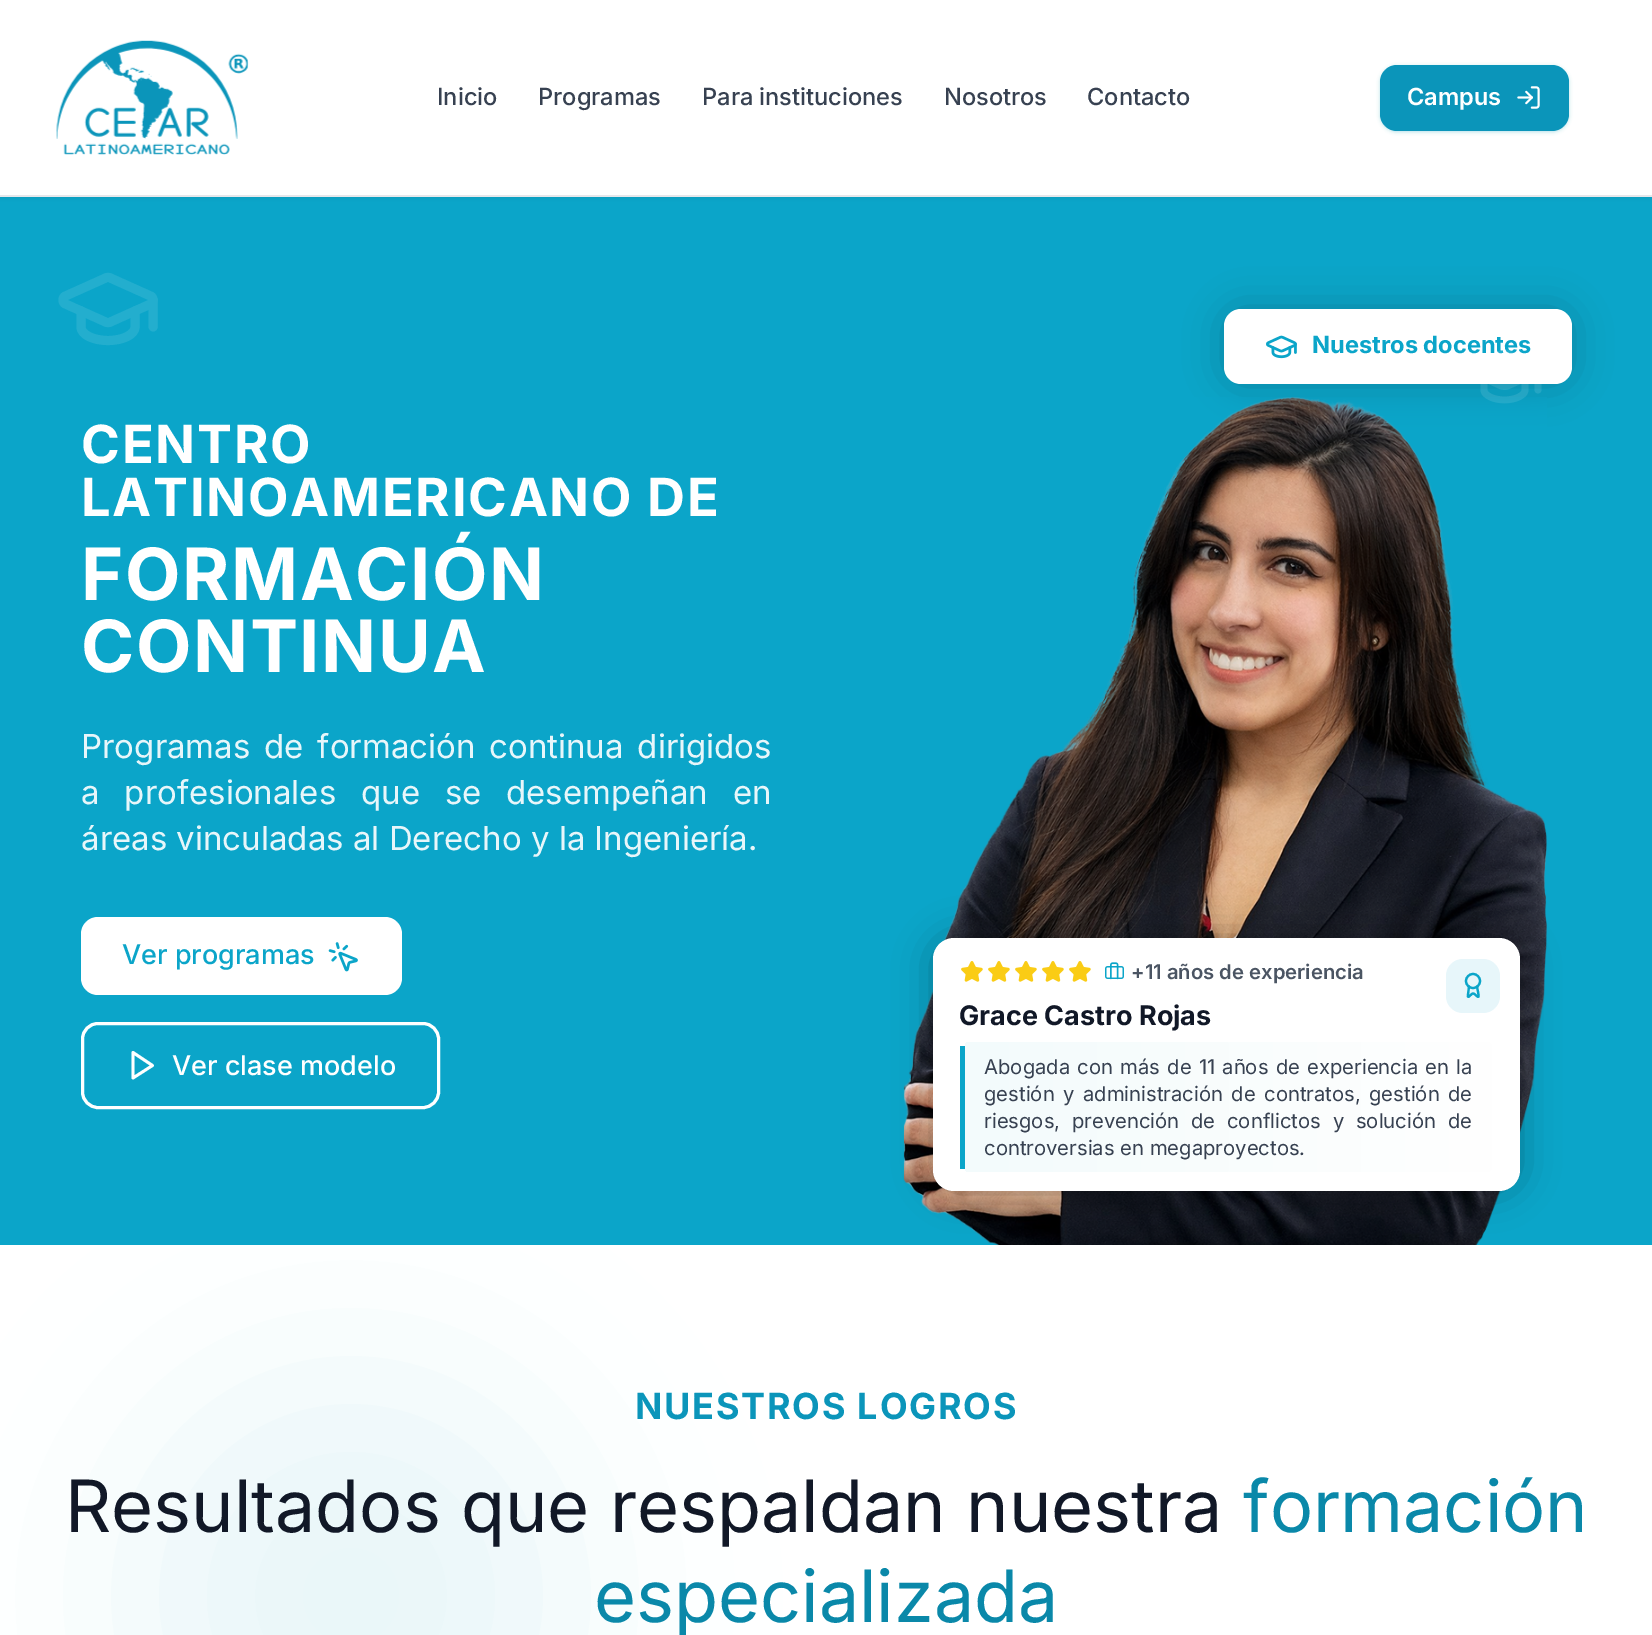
%!PS-Adobe-3.0
%%BoundingBox: 0 0 1652 1635
%%LanguageLevel: 3
%%Pages: 1
%%EndComments
%%BeginProlog
/setink { 3 { 255 div 3 1 roll } repeat setrgbcolor } def
/usefont { [ exch dup neg 0 0 3 -1 roll 0 0 ] selectfont } def
/drawtext { setink usefont moveto show } def
/fillbox { setink rectfill } def
/setalpha { dup .setfillconstantalpha .setstrokeconstantalpha } def
/disc { newpath 0 360 arc closepath } def
/rrect { 5 dict begin { /r /h /w /y /x } { exch def } forall
  x r add y moveto x w add y 2 copy h add r arct x w add y h add x 1 index r arct
  x y h add x y r arct x y 2 copy exch w add exch r arct closepath end } def
/softshadow { 12 dict begin { /a /b /q /h /w /y /x } { exch def } forall gsave /was 0 def
  9 -2 -9 { dup b mul 4 div /e exch def 1 sub .425 mul 2.718 exch exp 1 add a .99 .min exch div /now exch def
    1 1 now sub 1 was sub div sub setalpha /was now def
    w h .min e 2 mul add 0 gt { x e sub y e sub w e 2 mul add h e 2 mul add
      q e add b .6 mul add w h .min 2 div e add .min 0 .max rrect fill } if } for grestore end } def
/drawimage { 5 dict begin { /h /w /y /x /name } { exch def } forall
  gsave x y translate w h scale
  w h 8 [w 0 0 h 0 0] name (r) file false 3 colorimage grestore end } def
%%EndProlog
%%BeginSetup
<< /PageSize [1652 1635] /PageUsesTransparency true >> setpagedevice
%%EndSetup
%%Page: 1 1
0 .pushpdf14devicefilter
0 1635 translate 1 -1 scale
4 setmiterlimit
0 0 1652 1635 255 255 255 fillbox
0 197 1652 1048 11 165 201 fillbox
0 0 0 setink
0 2 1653 196 0 2 0.05 softshadow
0 0 1652 195 255 255 255 fillbox
0 195 1652 2 229 231 235 fillbox
(assets/img1.rgb) 56 40 193 115 drawimage
(Inicio) 437 105 /Inter-Medium 23.6 55 65 81 drawtext
(Programas) 538 105 /Inter-Medium 23.6 55 65 81 drawtext
(Para instituciones) 702 105 /Inter-Medium 23.6 55 65 81 drawtext
(Nosotros) 944 105 /Inter-Medium 23.6 55 65 81 drawtext
(Contacto) 1087 105 /Inter-Medium 23.6 55 65 81 drawtext
11 149 186 setink
1380 66 189 66 17 2 0.3 softshadow
1380 65 189 66 17 rrect fill
(Campus) 1407 105 /Inter-SemiBold 23.6 255 255 255 drawtext
(assets/img2.rgb) 1517 86 23 23 drawimage
35 174 206 setink
9 setlinewidth
1 setlinecap
1 setlinejoin
150.5 304 moveto 152 303.5 153 302 153 300 curveto 153 298 152 296.5 150.5 296 curveto 111.5 278.5 lineto 109.5 277 106.5 277 104.5 278.5 curveto 65.5 296 lineto 64 296.5 63 298 63 300 curveto 63 302 64 303.5 65.5 304 curveto 104.5 321.5 lineto 106.5 323 109.5 323 111.5 321.5 curveto closepath stroke
153 300 moveto 153 327 lineto stroke
81 311 moveto 81 327 lineto 81 334.5 93 340.5 108 340.5 curveto 123 340.5 135 334.5 135 327 curveto 135 311 lineto stroke
0 0 0 setink
1224 309 348 75 17 19 0.2 softshadow
255 255 255 setink
1224 309 348 75 17 rrect fill
(assets/img3.rgb) 1266 335 31 24 drawimage
(Nuestros docentes) 1312 353 /Inter-Bold 23.6 11 165 201 drawtext
/Inter-Bold 52.5 usefont
255 255 255 setink
81 463 moveto 1.7 0 (CENTRO) ashow
81 516 moveto 1.7 0 (LATINOAMERICANO DE) ashow
/Inter-Bold 72 usefont
81 600 moveto 1.7 0 (FORMACIÓN) ashow
81 672 moveto 1.7 0 (CONTINUA) ashow
/Inter-Regular 33 usefont
231 246 250 setink
81 758 moveto 4.5 0 32 (Programas de formación continua dirigidos) widthshow
81 804 moveto 15.5 0 32 (a profesionales que se desempeñan en) widthshow
(áreas vinculadas al Derecho y la Ingeniería.) 81 850 /Inter-Regular 33 231 246 250 drawtext
255 255 255 setink
81 917 321 78 17 rrect fill
(Ver programas) 122 964 /Inter-Medium 27 11 165 201 drawtext
(assets/img4.rgb) 328 942 30 30 drawimage
11 149 186 setink
135 1380 432 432 216 96 0.08 softshadow
255 255 255 setink
3 setlinewidth
0 setlinecap
0 setlinejoin
82.5 1023.5 356 84 15.5 rrect stroke
2.8 setlinewidth
1 setlinecap
1 setlinejoin
133 1052.5 moveto 152.5 1065.5 lineto 133 1078 lineto closepath stroke
(Ver clase modelo) 172 1075 /Inter-Medium 27 255 255 255 drawtext
0.1 setalpha
6.8 setlinewidth
1536.5 373 moveto 1538 370.5 lineto 1539.5 367 1533.5 365.5 1531.5 364.5 curveto 1512 355.5 lineto 1509 354 1505.5 352 1501.5 353.5 curveto 1497.5 355.5 1472 366 1471 368.5 curveto 1469 372.5 1475.5 374 1477.5 375 curveto 1497 384 lineto 1500 385.5 1503.5 387.5 1507.5 386 curveto closepath stroke
1538 370 moveto 1538 390 lineto 1484 378 moveto 1484 390 lineto 1484 395.5 1493.5 400 1504.5 400 curveto 1515.5 400 1525 395.5 1525 390 curveto 1525 378 lineto stroke
1 setalpha
(assets/img5.rgb) 903 397 644 848 drawimage
0 0 0 setink
933 938 587 253 21 19 0.3 softshadow
255 255 255 setink
933 938 587 253 21 rrect fill
(assets/img6.rgb) 961 961 22 21 drawimage
(assets/img6.rgb) 988 961 22 21 drawimage
(assets/img6.rgb) 1015 961 22 21 drawimage
(assets/img6.rgb) 1042 961 22 21 drawimage
(assets/img6.rgb) 1069 961 22 21 drawimage
(assets/img7.rgb) 1105 962 19 18 drawimage
(+11 años de experiencia) 1131 979 /Inter-SemiBold 20.25 75 85 99 drawtext
231 246 250 setink
1446 959 54 54 17 rrect fill
11 165 201 setink
2.2 setlinewidth
1477 986.5 moveto 1478.5 994.5 lineto 1479.5 1000.5 1475.5 993.5 1473 993.5 curveto 1471 993.5 1467 1000.5 1468 994.5 curveto 1469 986.5 lineto stroke
0 setlinecap
0 setlinejoin
1473 981 7 disc stroke
(Grace Castro Rojas) 959 1025 /Inter-Bold 27 17 24 39 drawtext
gsave 967 1042 moveto 1486 1042 lineto 1490 1042 1493 1046 1493 1049 curveto 1493 1165 lineto 1493 1168 1490 1172 1486 1172 curveto 967 1172 lineto 966 1172 965 1168 965 1165 curveto 965 1049 lineto 965 1046 966 1042 967 1042 curveto closepath clip newpath
<< /ShadingType 2 /ColorSpace /DeviceRGB /Coords [965 1107 1493 1107] /Extend [true true] /Function << /FunctionType 2 /Domain [0 1] /C0 [0.953 0.984 0.988] /C1 [1 1 1] /N 1 >> >> shfill grestore
960 1046 5 123 11 165 201 fillbox
/Inter-Regular 20.25 usefont
55 65 81 setink
984 1074 moveto 1.5 0 32 (Abogada con más de 11 años de experiencia en la) widthshow
984 1101 moveto 2.75 0 32 (gestión y administración de contratos, gestión de) widthshow
984 1128 moveto 6 0 32 (riesgos, prevención de conflictos y solución de) widthshow
(controversias en megaproyectos.) 984 1155 /Inter-Regular 20.25 55 65 81 drawtext
/Inter-Bold 36 usefont
11 149 186 setink
635 1419 moveto 1.75 0 (NUESTROS LOGROS) ashow
(Resultados que respaldan nuestra) 65 1532 /Inter-Regular 72 17 24 39 drawtext
(formación) 1243 1532 /Inter-Regular 72 10 136 169 drawtext
(especializada) 594 1622 /Inter-Regular 72 10 136 169 drawtext
.poppdf14devicefilter showpage
%%EOF
